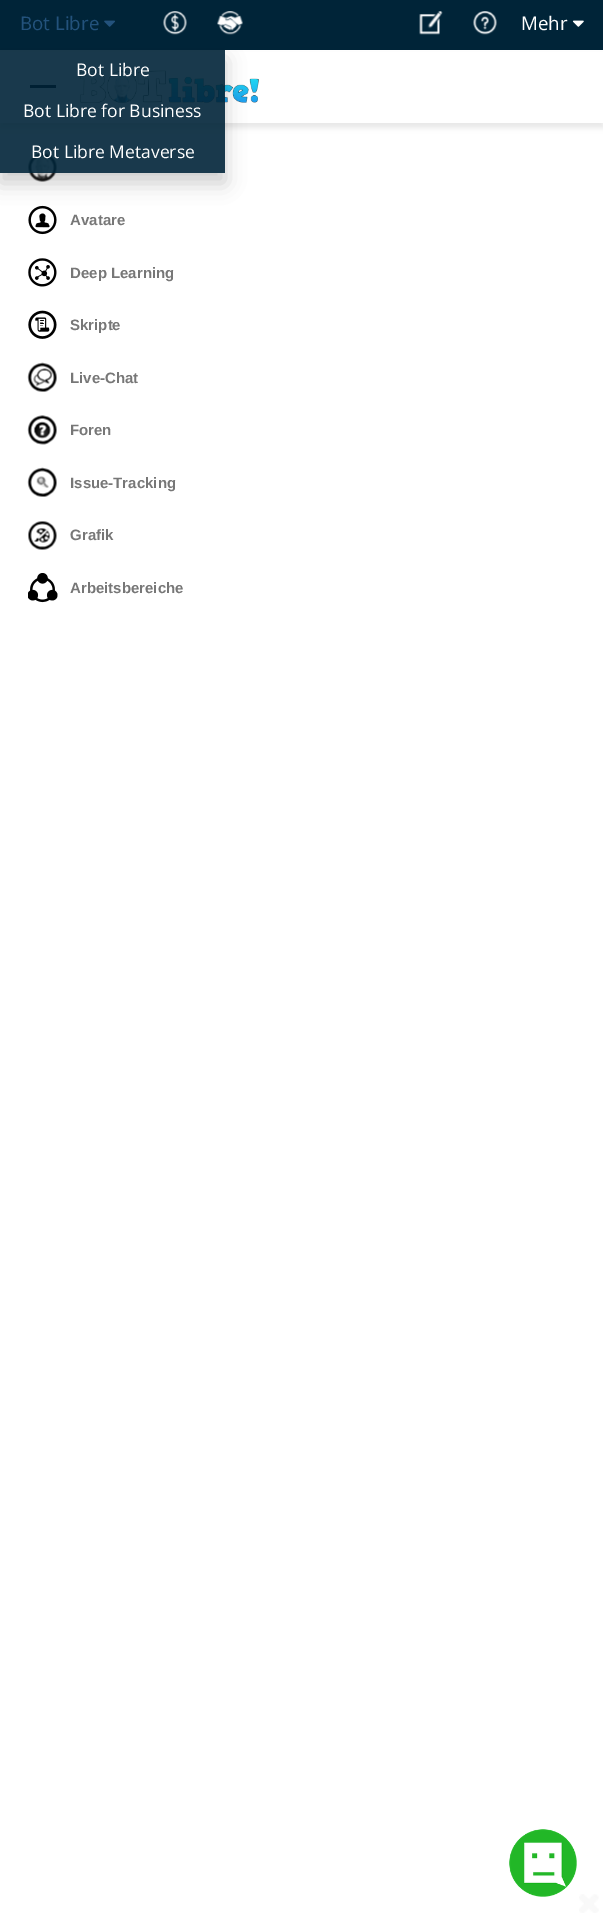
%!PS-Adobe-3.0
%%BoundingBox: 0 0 603 1923
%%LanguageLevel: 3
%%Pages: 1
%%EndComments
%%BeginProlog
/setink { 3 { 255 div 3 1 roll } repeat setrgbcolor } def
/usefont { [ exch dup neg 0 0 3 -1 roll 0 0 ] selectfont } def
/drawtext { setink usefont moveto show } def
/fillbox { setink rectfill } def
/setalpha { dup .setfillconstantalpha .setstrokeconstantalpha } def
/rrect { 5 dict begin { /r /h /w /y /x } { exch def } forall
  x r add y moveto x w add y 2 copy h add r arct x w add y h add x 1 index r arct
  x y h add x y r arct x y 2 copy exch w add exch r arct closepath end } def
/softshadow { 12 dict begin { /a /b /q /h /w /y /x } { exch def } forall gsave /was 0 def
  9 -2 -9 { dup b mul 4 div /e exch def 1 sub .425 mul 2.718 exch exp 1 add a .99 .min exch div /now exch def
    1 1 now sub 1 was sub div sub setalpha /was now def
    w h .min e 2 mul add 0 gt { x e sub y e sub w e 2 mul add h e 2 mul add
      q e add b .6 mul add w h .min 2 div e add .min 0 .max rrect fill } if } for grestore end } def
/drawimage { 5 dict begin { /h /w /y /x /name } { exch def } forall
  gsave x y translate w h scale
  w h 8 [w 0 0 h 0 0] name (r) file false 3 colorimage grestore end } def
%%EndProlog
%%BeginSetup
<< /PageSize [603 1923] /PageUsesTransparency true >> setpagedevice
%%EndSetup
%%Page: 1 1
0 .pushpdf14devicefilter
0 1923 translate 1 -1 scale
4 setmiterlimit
0 0 603 1923 255 255 255 fillbox
203 203 203 setink
0 55 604 73 0 2.5 0.43 softshadow
0 0 603 50 0 36 56 fillbox
(Bot Libre) 20 30 /OpenSans-Regular 18.75 35 82 124 drawtext
(assets/img1.rgb) 104 20 11 7 drawimage
(assets/img2.rgb) 163 11 24 24 drawimage
(assets/img3.rgb) 217 11 26 24 drawimage
0 52 603 71 255 255 255 fillbox
30 85 26 3 0 0 0 fillbox
(assets/img7.rgb) 79 70 180 33 drawimage
(assets/img8.rgb) 28 153 29 29 drawimage
(assets/img9.rgb) 28 205 29 30 drawimage
gsave
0 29 moveto 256 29 lineto 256 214 lineto 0 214 lineto closepath 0 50 moveto 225 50 lineto 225 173 lineto 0 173 lineto closepath eoclip newpath
0 60 225 123 0 10 0.2 softshadow
grestore
0.9 setalpha
0 50 225 123 0 36 56 fillbox
1 setalpha
(Bot Libre) 76 76 /OpenSans-Regular 17.5 255 255 255 drawtext
(Bot Libre for Business) 23 117 /OpenSans-Regular 17.5 255 255 255 drawtext
(Bot Libre Metaverse) 31 158 /OpenSans-Regular 17.5 255 255 255 drawtext
(assets/img4.rgb) 419 11 24 24 drawimage
(assets/img5.rgb) 473 11 24 24 drawimage
(Mehr) 521 30 /OpenSans-Regular 18.75 255 255 255 drawtext
(assets/img6.rgb) 572 20 12 7 drawimage
(Avatare) 70 225 /LiberationSans-Bold 15 119 119 119 drawtext
(assets/img10.rgb) 28 258 29 29 drawimage
(Deep Learning) 70 278 /LiberationSans-Bold 15 119 119 119 drawtext
(assets/img11.rgb) 28 310 29 29 drawimage
(Skripte) 70 330 /LiberationSans-Bold 15 119 119 119 drawtext
(assets/img12.rgb) 27 362 30 30 drawimage
(Live-Chat) 70 383 /LiberationSans-Bold 15 119 119 119 drawtext
(assets/img13.rgb) 27 415 30 30 drawimage
(Foren) 70 435 /LiberationSans-Bold 15 119 119 119 drawtext
(assets/img14.rgb) 27 467 30 30 drawimage
(Issue-Tracking) 70 488 /LiberationSans-Bold 15 119 119 119 drawtext
(assets/img15.rgb) 28 521 29 29 drawimage
(Grafik) 70 540 /LiberationSans-Bold 15 119 119 119 drawtext
(assets/img16.rgb) 28 573 30 30 drawimage
(Arbeitsbereiche) 70 593 /LiberationSans-Bold 15 119 119 119 drawtext
(assets/img17.rgb) 509 1829 68 68 drawimage
(assets/img18.rgb) 579 1894 20 19 drawimage
.poppdf14devicefilter showpage
%%EOF
